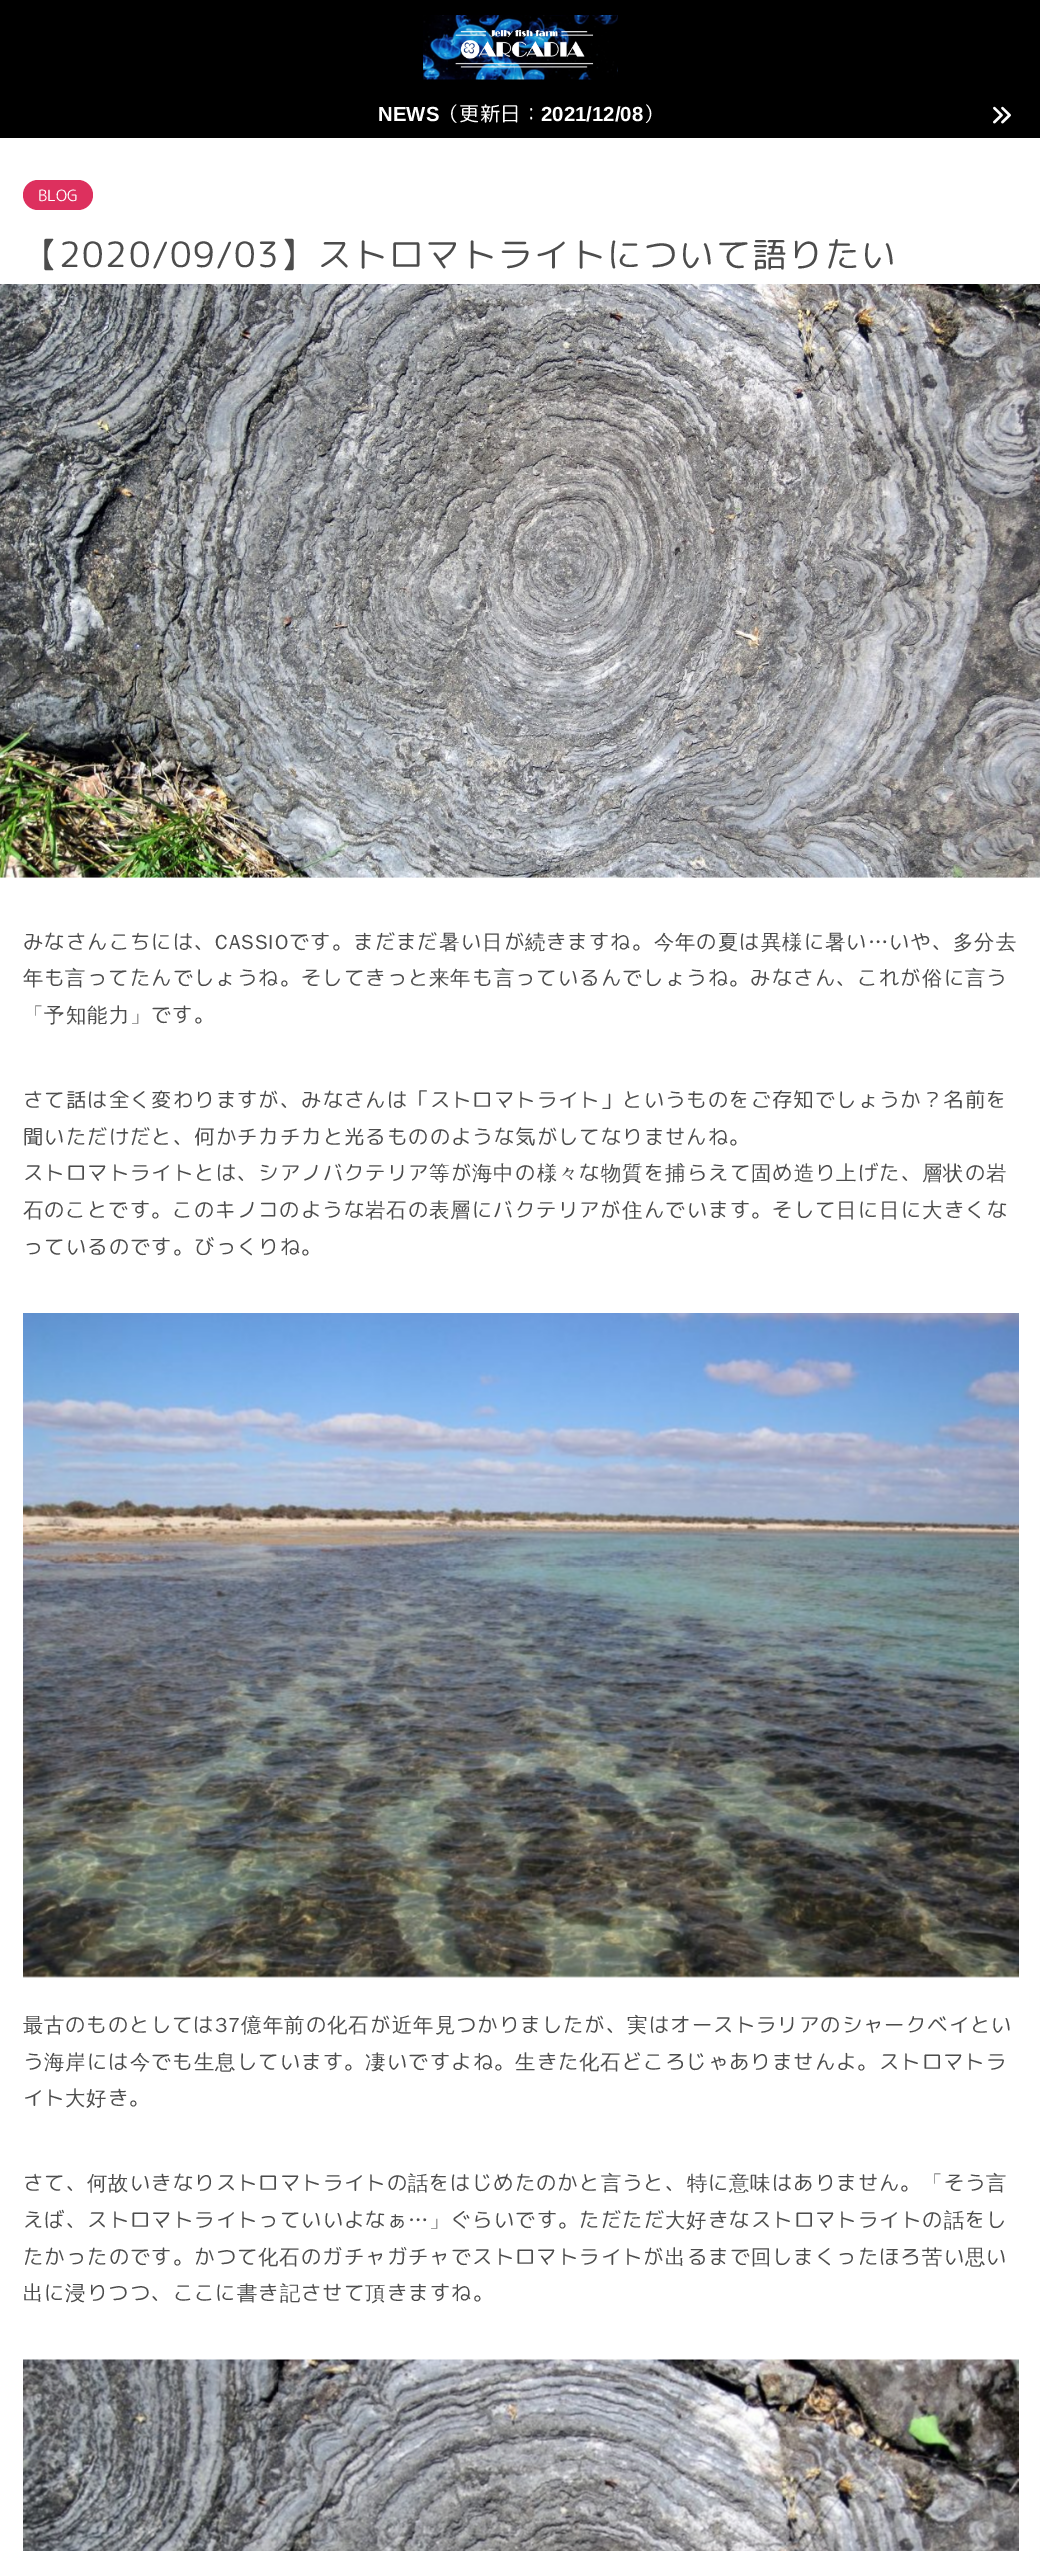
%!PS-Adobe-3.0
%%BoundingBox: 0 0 1040 2551
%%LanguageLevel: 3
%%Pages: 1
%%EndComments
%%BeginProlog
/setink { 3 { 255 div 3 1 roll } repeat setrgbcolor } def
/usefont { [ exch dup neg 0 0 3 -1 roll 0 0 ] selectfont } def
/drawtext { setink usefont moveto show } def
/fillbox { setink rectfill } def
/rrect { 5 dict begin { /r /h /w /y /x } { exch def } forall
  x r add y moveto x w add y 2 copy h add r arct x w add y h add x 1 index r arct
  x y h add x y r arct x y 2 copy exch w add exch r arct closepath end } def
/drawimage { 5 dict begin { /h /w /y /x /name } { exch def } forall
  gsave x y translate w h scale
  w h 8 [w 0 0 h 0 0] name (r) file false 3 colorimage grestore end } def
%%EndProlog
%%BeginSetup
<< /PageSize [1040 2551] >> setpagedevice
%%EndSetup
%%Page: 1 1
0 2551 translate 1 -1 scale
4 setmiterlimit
0 0 1040 2551 255 255 255 fillbox
0 0 1040 138 0 0 0 fillbox
(assets/img1.rgb) 423 15 195 65 drawimage
(NEWS) 378 121 /LiberationSans-Bold 20.4 255 255 255 drawtext
(（更新日：) 439 121 /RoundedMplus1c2-Regular 20.4 255 255 255 drawtext
(2021/12/08) 541 121 /LiberationSans-Bold 20.4 255 255 255 drawtext
(）) 643 121 /RoundedMplus1c2-Regular 20.4 255 255 255 drawtext
(assets/img2.rgb) 993 106 18 18 drawimage
221 48 94 setink
23 180 70 30 15 rrect fill
(BLOG) 38 201 /RoundedMplus1c-Regular 15.5 255 255 255 drawtext
/RoundedMplus1c-Regular 34.8 usefont
76 76 76 setink
23 267 moveto 1.5 0 (【2020/09/03】ストロマトライトについて語りたい) ashow
(assets/img3.rgb) 0 284 1040 594 drawimage
/RoundedMplus1c-Regular 20.4 usefont
23 949 moveto 1 0 (みなさんこちには、) ashow
/WenQuanYiZenHei-Medium 20.4 usefont
215 949 moveto 1 0 (CASSIO) ashow
/RoundedMplus1c-Regular 20.4 usefont
289 949 moveto 1 0 (です。まだまだ) ashow
/WenQuanYiZenHei-Medium 20.4 usefont
439 949 moveto 1 0 (暑) ashow
/RoundedMplus1c-Regular 20.4 usefont
461 949 moveto 1 0 (い) ashow
/WenQuanYiZenHei-Medium 20.4 usefont
482 949 moveto 1 0 (日) ashow
/RoundedMplus1c-Regular 20.4 usefont
504 949 moveto 1 0 (が) ashow
/WenQuanYiZenHei-Medium 20.4 usefont
525 949 moveto 1 0 (続) ashow
/RoundedMplus1c-Regular 20.4 usefont
546 949 moveto 1 0 (きますね。) ashow
/WenQuanYiZenHei-Medium 20.4 usefont
654 949 moveto 1 0 (今年) ashow
/RoundedMplus1c-Regular 20.4 usefont
696 949 moveto 1 0 (の) ashow
/WenQuanYiZenHei-Medium 20.4 usefont
718 949 moveto 1 0 (夏) ashow
/RoundedMplus1c-Regular 20.4 usefont
739 949 moveto 1 0 (は) ashow
/WenQuanYiZenHei-Medium 20.4 usefont
761 949 moveto 1 0 (異様) ashow
/RoundedMplus1c-Regular 20.4 usefont
804 949 moveto 1 0 (に) ashow
/WenQuanYiZenHei-Medium 20.4 usefont
825 949 moveto 1 0 (暑) ashow
/RoundedMplus1c-Regular 20.4 usefont
846 949 moveto 1 0 (い) ashow
/WenQuanYiZenHei-Medium 20.4 usefont
868 949 moveto 1 0 (…) ashow
/RoundedMplus1c-Regular 20.4 usefont
889 949 moveto 1 0 (いや、) ashow
/WenQuanYiZenHei-Medium 20.4 usefont
953 949 moveto 1 0 (多分去) ashow
23 985 moveto 1 0 (年) ashow
/RoundedMplus1c-Regular 20.4 usefont
44 985 moveto 1 0 (も) ashow
/WenQuanYiZenHei-Medium 20.4 usefont
65 985 moveto 1 0 (言) ashow
/RoundedMplus1c-Regular 20.4 usefont
87 985 moveto 1 0 (ってたんでしょうね。そしてきっと) ashow
/WenQuanYiZenHei-Medium 20.4 usefont
429 985 moveto 1 0 (来年) ashow
/RoundedMplus1c-Regular 20.4 usefont
472 985 moveto 1 0 (も) ashow
/WenQuanYiZenHei-Medium 20.4 usefont
494 985 moveto 1 0 (言) ashow
/RoundedMplus1c-Regular 20.4 usefont
515 985 moveto 1 0 (っているんでしょうね。みなさん、これが) ashow
/WenQuanYiZenHei-Medium 20.4 usefont
922 985 moveto 1 0 (俗) ashow
/RoundedMplus1c-Regular 20.4 usefont
944 985 moveto 1 0 (に) ashow
/WenQuanYiZenHei-Medium 20.4 usefont
965 985 moveto 1 0 (言) ashow
/RoundedMplus1c-Regular 20.4 usefont
986 985 moveto 1 0 (う) ashow
/WenQuanYiZenHei-Medium 20.4 usefont
23 1022 moveto 1 0 (「予知能力」) ashow
/RoundedMplus1c-Regular 20.4 usefont
151 1022 moveto 1 0 (です。) ashow
23 1107 moveto 1 0 (さて話は全く変わりますが、みなさんは「ストロマトライト」というものをご存知でしょうか？名前を) ashow
23 1144 moveto 1 0 (聞いただけだと、何かチカチカと光るもののような気がしてなりませんね。) ashow
23 1180 moveto 1 0 (ストロマトライトとは、シアノバクテリア) ashow
/WenQuanYiZenHei-Medium 20.4 usefont
429 1180 moveto 1 0 (等) ashow
/RoundedMplus1c-Regular 20.4 usefont
451 1180 moveto 1 0 (が) ashow
/WenQuanYiZenHei-Medium 20.4 usefont
472 1180 moveto 1 0 (海中) ashow
/RoundedMplus1c-Regular 20.4 usefont
515 1180 moveto 1 0 (の) ashow
/WenQuanYiZenHei-Medium 20.4 usefont
537 1180 moveto 1 0 (様々) ashow
/RoundedMplus1c-Regular 20.4 usefont
579 1180 moveto 1 0 (な) ashow
/WenQuanYiZenHei-Medium 20.4 usefont
601 1180 moveto 1 0 (物質) ashow
/RoundedMplus1c-Regular 20.4 usefont
644 1180 moveto 1 0 (を) ashow
/WenQuanYiZenHei-Medium 20.4 usefont
665 1180 moveto 1 0 (捕) ashow
/RoundedMplus1c-Regular 20.4 usefont
687 1180 moveto 1 0 (らえて) ashow
/WenQuanYiZenHei-Medium 20.4 usefont
751 1180 moveto 1 0 (固) ashow
/RoundedMplus1c-Regular 20.4 usefont
772 1180 moveto 1 0 (め) ashow
/WenQuanYiZenHei-Medium 20.4 usefont
794 1180 moveto 1 0 (造) ashow
/RoundedMplus1c-Regular 20.4 usefont
815 1180 moveto 1 0 (り) ashow
/WenQuanYiZenHei-Medium 20.4 usefont
836 1180 moveto 1 0 (上) ashow
/RoundedMplus1c-Regular 20.4 usefont
858 1180 moveto 1 0 (げた、) ashow
/WenQuanYiZenHei-Medium 20.4 usefont
922 1180 moveto 1 0 (層状) ashow
/RoundedMplus1c-Regular 20.4 usefont
965 1180 moveto 1 0 (の) ashow
/WenQuanYiZenHei-Medium 20.4 usefont
986 1180 moveto 1 0 (岩) ashow
23 1217 moveto 1 0 (石) ashow
/RoundedMplus1c-Regular 20.4 usefont
44 1217 moveto 1 0 (のことです。このキノコのような) ashow
/WenQuanYiZenHei-Medium 20.4 usefont
365 1217 moveto 1 0 (岩石) ashow
/RoundedMplus1c-Regular 20.4 usefont
408 1217 moveto 1 0 (の) ashow
/WenQuanYiZenHei-Medium 20.4 usefont
429 1217 moveto 1 0 (表層) ashow
/RoundedMplus1c-Regular 20.4 usefont
472 1217 moveto 1 0 (にバクテリアが) ashow
/WenQuanYiZenHei-Medium 20.4 usefont
622 1217 moveto 1 0 (住) ashow
/RoundedMplus1c-Regular 20.4 usefont
644 1217 moveto 1 0 (んでいます。そして) ashow
/WenQuanYiZenHei-Medium 20.4 usefont
836 1217 moveto 1 0 (日) ashow
/RoundedMplus1c-Regular 20.4 usefont
858 1217 moveto 1 0 (に) ashow
/WenQuanYiZenHei-Medium 20.4 usefont
879 1217 moveto 1 0 (日) ashow
/RoundedMplus1c-Regular 20.4 usefont
901 1217 moveto 1 0 (に) ashow
/WenQuanYiZenHei-Medium 20.4 usefont
922 1217 moveto 1 0 (大) ashow
/RoundedMplus1c-Regular 20.4 usefont
944 1217 moveto 1 0 (きくな) ashow
23 1254 moveto 1 0 (っているのです。びっくりね。) ashow
(assets/img4.rgb) 23 1313 996 665 drawimage
/WenQuanYiZenHei-Medium 20.4 usefont
23 2032 moveto 1 0 (最古) ashow
/RoundedMplus1c-Regular 20.4 usefont
65 2032 moveto 1 0 (のものとしては) ashow
/WenQuanYiZenHei-Medium 20.4 usefont
215 2032 moveto 1 0 (37億年前) ashow
/RoundedMplus1c-Regular 20.4 usefont
306 2032 moveto 1 0 (の) ashow
/WenQuanYiZenHei-Medium 20.4 usefont
327 2032 moveto 1 0 (化石) ashow
/RoundedMplus1c-Regular 20.4 usefont
370 2032 moveto 1 0 (が) ashow
/WenQuanYiZenHei-Medium 20.4 usefont
392 2032 moveto 1 0 (近年見) ashow
/RoundedMplus1c-Regular 20.4 usefont
456 2032 moveto 1 0 (つかりましたが、) ashow
/WenQuanYiZenHei-Medium 20.4 usefont
627 2032 moveto 1 0 (実) ashow
/RoundedMplus1c-Regular 20.4 usefont
649 2032 moveto 1 0 (はオーストラリアのシャークベイとい) ashow
23 2069 moveto 1 0 (う) ashow
/WenQuanYiZenHei-Medium 20.4 usefont
44 2069 moveto 1 0 (海岸) ashow
/RoundedMplus1c-Regular 20.4 usefont
87 2069 moveto 1 0 (には) ashow
/WenQuanYiZenHei-Medium 20.4 usefont
130 2069 moveto 1 0 (今) ashow
/RoundedMplus1c-Regular 20.4 usefont
151 2069 moveto 1 0 (でも) ashow
/WenQuanYiZenHei-Medium 20.4 usefont
194 2069 moveto 1 0 (生息) ashow
/RoundedMplus1c-Regular 20.4 usefont
237 2069 moveto 1 0 (しています。) ashow
/WenQuanYiZenHei-Medium 20.4 usefont
365 2069 moveto 1 0 (凄) ashow
/RoundedMplus1c-Regular 20.4 usefont
387 2069 moveto 1 0 (いですよね。) ashow
/WenQuanYiZenHei-Medium 20.4 usefont
515 2069 moveto 1 0 (生) ashow
/RoundedMplus1c-Regular 20.4 usefont
537 2069 moveto 1 0 (きた) ashow
/WenQuanYiZenHei-Medium 20.4 usefont
579 2069 moveto 1 0 (化石) ashow
/RoundedMplus1c-Regular 20.4 usefont
622 2069 moveto 1 0 (どころじゃありませんよ。ストロマトラ) ashow
23 2105 moveto 1 0 (イト) ashow
/WenQuanYiZenHei-Medium 20.4 usefont
65 2105 moveto 1 0 (大好) ashow
/RoundedMplus1c-Regular 20.4 usefont
108 2105 moveto 1 0 (き。) ashow
23 2190 moveto 1 0 (さて、) ashow
/WenQuanYiZenHei-Medium 20.4 usefont
87 2190 moveto 1 0 (何故) ashow
/RoundedMplus1c-Regular 20.4 usefont
130 2190 moveto 1 0 (いきなりストロマトライトの) ashow
/WenQuanYiZenHei-Medium 20.4 usefont
408 2190 moveto 1 0 (話) ashow
/RoundedMplus1c-Regular 20.4 usefont
429 2190 moveto 1 0 (をはじめたのかと) ashow
/WenQuanYiZenHei-Medium 20.4 usefont
601 2190 moveto 1 0 (言) ashow
/RoundedMplus1c-Regular 20.4 usefont
622 2190 moveto 1 0 (うと、) ashow
/WenQuanYiZenHei-Medium 20.4 usefont
687 2190 moveto 1 0 (特) ashow
/RoundedMplus1c-Regular 20.4 usefont
708 2190 moveto 1 0 (に) ashow
/WenQuanYiZenHei-Medium 20.4 usefont
729 2190 moveto 1 0 (意味) ashow
/RoundedMplus1c-Regular 20.4 usefont
772 2190 moveto 1 0 (はありません。) ashow
/WenQuanYiZenHei-Medium 20.4 usefont
922 2190 moveto 1 0 (「) ashow
/RoundedMplus1c-Regular 20.4 usefont
944 2190 moveto 1 0 (そう) ashow
/WenQuanYiZenHei-Medium 20.4 usefont
986 2190 moveto 1 0 (言) ashow
/RoundedMplus1c-Regular 20.4 usefont
23 2227 moveto 1 0 (えば、ストロマトライトっていいよなぁ) ashow
/WenQuanYiZenHei-Medium 20.4 usefont
408 2227 moveto 1 0 (…」) ashow
/RoundedMplus1c-Regular 20.4 usefont
451 2227 moveto 1 0 (ぐらいです。ただただ) ashow
/WenQuanYiZenHei-Medium 20.4 usefont
665 2227 moveto 1 0 (大好) ashow
/RoundedMplus1c-Regular 20.4 usefont
708 2227 moveto 1 0 (きなストロマトライトの) ashow
/WenQuanYiZenHei-Medium 20.4 usefont
944 2227 moveto 1 0 (話) ashow
/RoundedMplus1c-Regular 20.4 usefont
965 2227 moveto 1 0 (をし) ashow
23 2264 moveto 1 0 (たかったのです。かつて) ashow
/WenQuanYiZenHei-Medium 20.4 usefont
258 2264 moveto 1 0 (化石) ashow
/RoundedMplus1c-Regular 20.4 usefont
301 2264 moveto 1 0 (のガチャガチャでストロマトライトが) ashow
/WenQuanYiZenHei-Medium 20.4 usefont
665 2264 moveto 1 0 (出) ashow
/RoundedMplus1c-Regular 20.4 usefont
687 2264 moveto 1 0 (るまで) ashow
/WenQuanYiZenHei-Medium 20.4 usefont
751 2264 moveto 1 0 (回) ashow
/RoundedMplus1c-Regular 20.4 usefont
772 2264 moveto 1 0 (しまくったほろ) ashow
/WenQuanYiZenHei-Medium 20.4 usefont
922 2264 moveto 1 0 (苦) ashow
/RoundedMplus1c-Regular 20.4 usefont
944 2264 moveto 1 0 (い) ashow
/WenQuanYiZenHei-Medium 20.4 usefont
965 2264 moveto 1 0 (思) ashow
/RoundedMplus1c-Regular 20.4 usefont
986 2264 moveto 1 0 (い) ashow
/WenQuanYiZenHei-Medium 20.4 usefont
23 2300 moveto 1 0 (出) ashow
/RoundedMplus1c-Regular 20.4 usefont
44 2300 moveto 1 0 (に) ashow
/WenQuanYiZenHei-Medium 20.4 usefont
65 2300 moveto 1 0 (浸) ashow
/RoundedMplus1c-Regular 20.4 usefont
87 2300 moveto 1 0 (りつつ、ここに) ashow
/WenQuanYiZenHei-Medium 20.4 usefont
237 2300 moveto 1 0 (書) ashow
/RoundedMplus1c-Regular 20.4 usefont
258 2300 moveto 1 0 (き) ashow
/WenQuanYiZenHei-Medium 20.4 usefont
280 2300 moveto 1 0 (記) ashow
/RoundedMplus1c-Regular 20.4 usefont
301 2300 moveto 1 0 (させて) ashow
/WenQuanYiZenHei-Medium 20.4 usefont
365 2300 moveto 1 0 (頂) ashow
/RoundedMplus1c-Regular 20.4 usefont
387 2300 moveto 1 0 (きますね。) ashow
(assets/img5.rgb) 23 2359 996 192 drawimage
showpage
%%EOF
